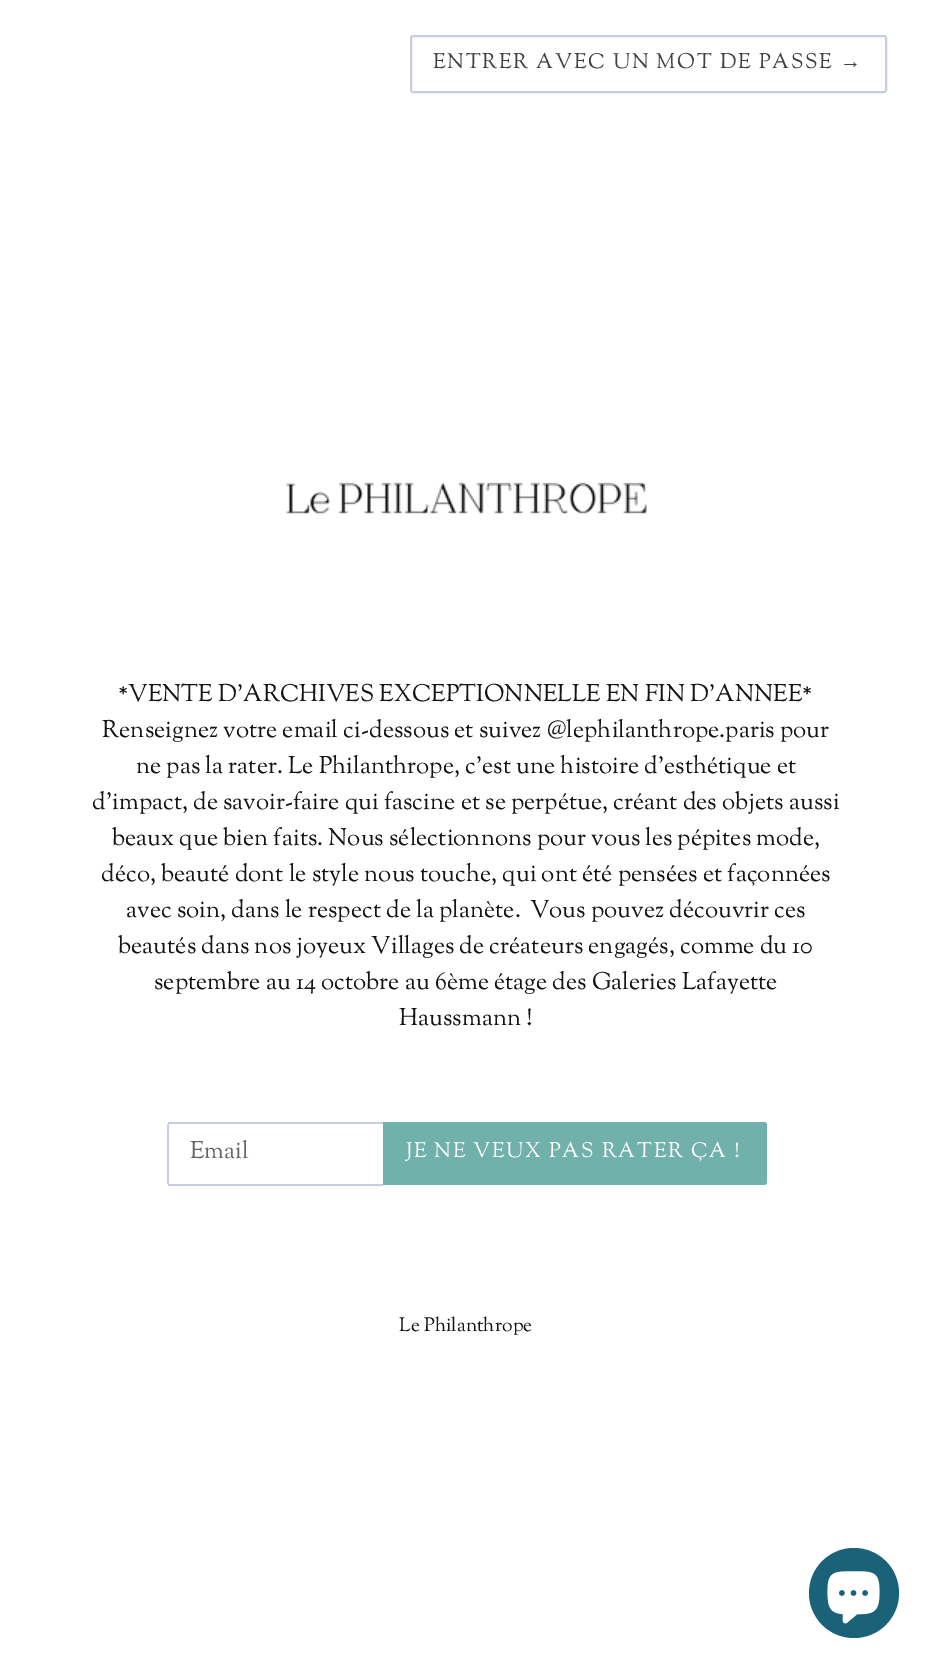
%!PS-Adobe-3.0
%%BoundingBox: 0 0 931 1669
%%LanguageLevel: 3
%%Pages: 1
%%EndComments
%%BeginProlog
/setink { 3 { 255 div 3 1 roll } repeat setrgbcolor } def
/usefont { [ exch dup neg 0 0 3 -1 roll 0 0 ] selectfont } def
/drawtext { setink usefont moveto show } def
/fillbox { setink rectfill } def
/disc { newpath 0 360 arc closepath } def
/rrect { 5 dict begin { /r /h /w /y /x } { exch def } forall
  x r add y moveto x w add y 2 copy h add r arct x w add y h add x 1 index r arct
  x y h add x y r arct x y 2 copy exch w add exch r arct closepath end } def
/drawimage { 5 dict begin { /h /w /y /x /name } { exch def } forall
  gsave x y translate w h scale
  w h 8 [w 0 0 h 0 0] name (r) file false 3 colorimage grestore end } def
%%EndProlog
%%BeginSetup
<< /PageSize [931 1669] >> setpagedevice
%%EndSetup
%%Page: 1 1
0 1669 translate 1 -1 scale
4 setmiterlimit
0 0 931 1669 255 255 255 fillbox
198 206 223 setink
2 setlinewidth
411 36 475 56 2 rrect stroke
/SortsMillGoudy-Regular 21 usefont
61 66 70 setink
433 68 moveto 1.7 0 (ENTRER AVEC UN MOT DE PASSE) ashow
/LiberationSerif-Regular 21 usefont
840 68 moveto 1.7 0 (→) ashow
(assets/img1.rgb) 286 482 361 33 drawimage
(*VENTE D'ARCHIVES EXCEPTIONNELLE EN FIN D'ANNEE*) 118 701 /SortsMillGoudy-Regular 24 19 20 22 drawtext
(Renseignez votre email ci-dessous et suivez @lephilanthrope.paris pour) 102 737 /SortsMillGoudy-Regular 24 19 20 22 drawtext
(ne pas la rater. Le Philanthrope, c’est une histoire d’esthétique et) 136 773 /SortsMillGoudy-Regular 24 19 20 22 drawtext
(d’impact, de savoir-faire qui fascine et se perpétue, créant des objets aussi) 92 809 /SortsMillGoudy-Regular 24 19 20 22 drawtext
(beaux que bien faits. Nous sélectionnons pour vous les pépites mode,) 112 845 /SortsMillGoudy-Regular 24 19 20 22 drawtext
(déco, beauté dont le style nous touche, qui ont été pensées et façonnées) 101 881 /SortsMillGoudy-Regular 24 19 20 22 drawtext
(avec soin, dans le respect de la planète.) 126 917 /SortsMillGoudy-Regular 24 19 20 22 drawtext
(Vous pouvez découvrir ces) 530 917 /SortsMillGoudy-Regular 24 19 20 22 drawtext
(beautés dans nos joyeux Villages de créateurs engagés, comme du 10) 118 953 /SortsMillGoudy-Regular 24 19 20 22 drawtext
(septembre au 14 octobre au 6ème étage des Galeries Lafayette) 154 989 /SortsMillGoudy-Regular 24 19 20 22 drawtext
(Haussmann !) 399 1025 /SortsMillGoudy-Regular 24 19 20 22 drawtext
168 1122 215 2 198 206 223 fillbox
168 1184 215 2 198 206 223 fillbox
167 1124 2 60 198 206 223 fillbox
(Email) 190 1158 /SortsMillGoudy-Regular 24 102 102 102 drawtext
113 177 171 setink
383 1122 moveto 764 1122 lineto 765.5 1122 767 1123.5 767 1125 curveto 767 1182 lineto 767 1183.5 765.5 1185 764 1185 curveto 383 1185 lineto closepath fill
/SortsMillGoudy-Regular 21 usefont
255 255 255 setink
406 1157 moveto 1.7 0 (JE NE VEUX PAS RATER ÇA !) ashow
(Le Philanthrope) 399 1331 /SortsMillGoudy-Regular 19.25 19 20 22 drawtext
26 98 120 setink
854 1593 45 disc fill
(assets/img2.rgb) 827 1571 53 53 drawimage
showpage
%%EOF
